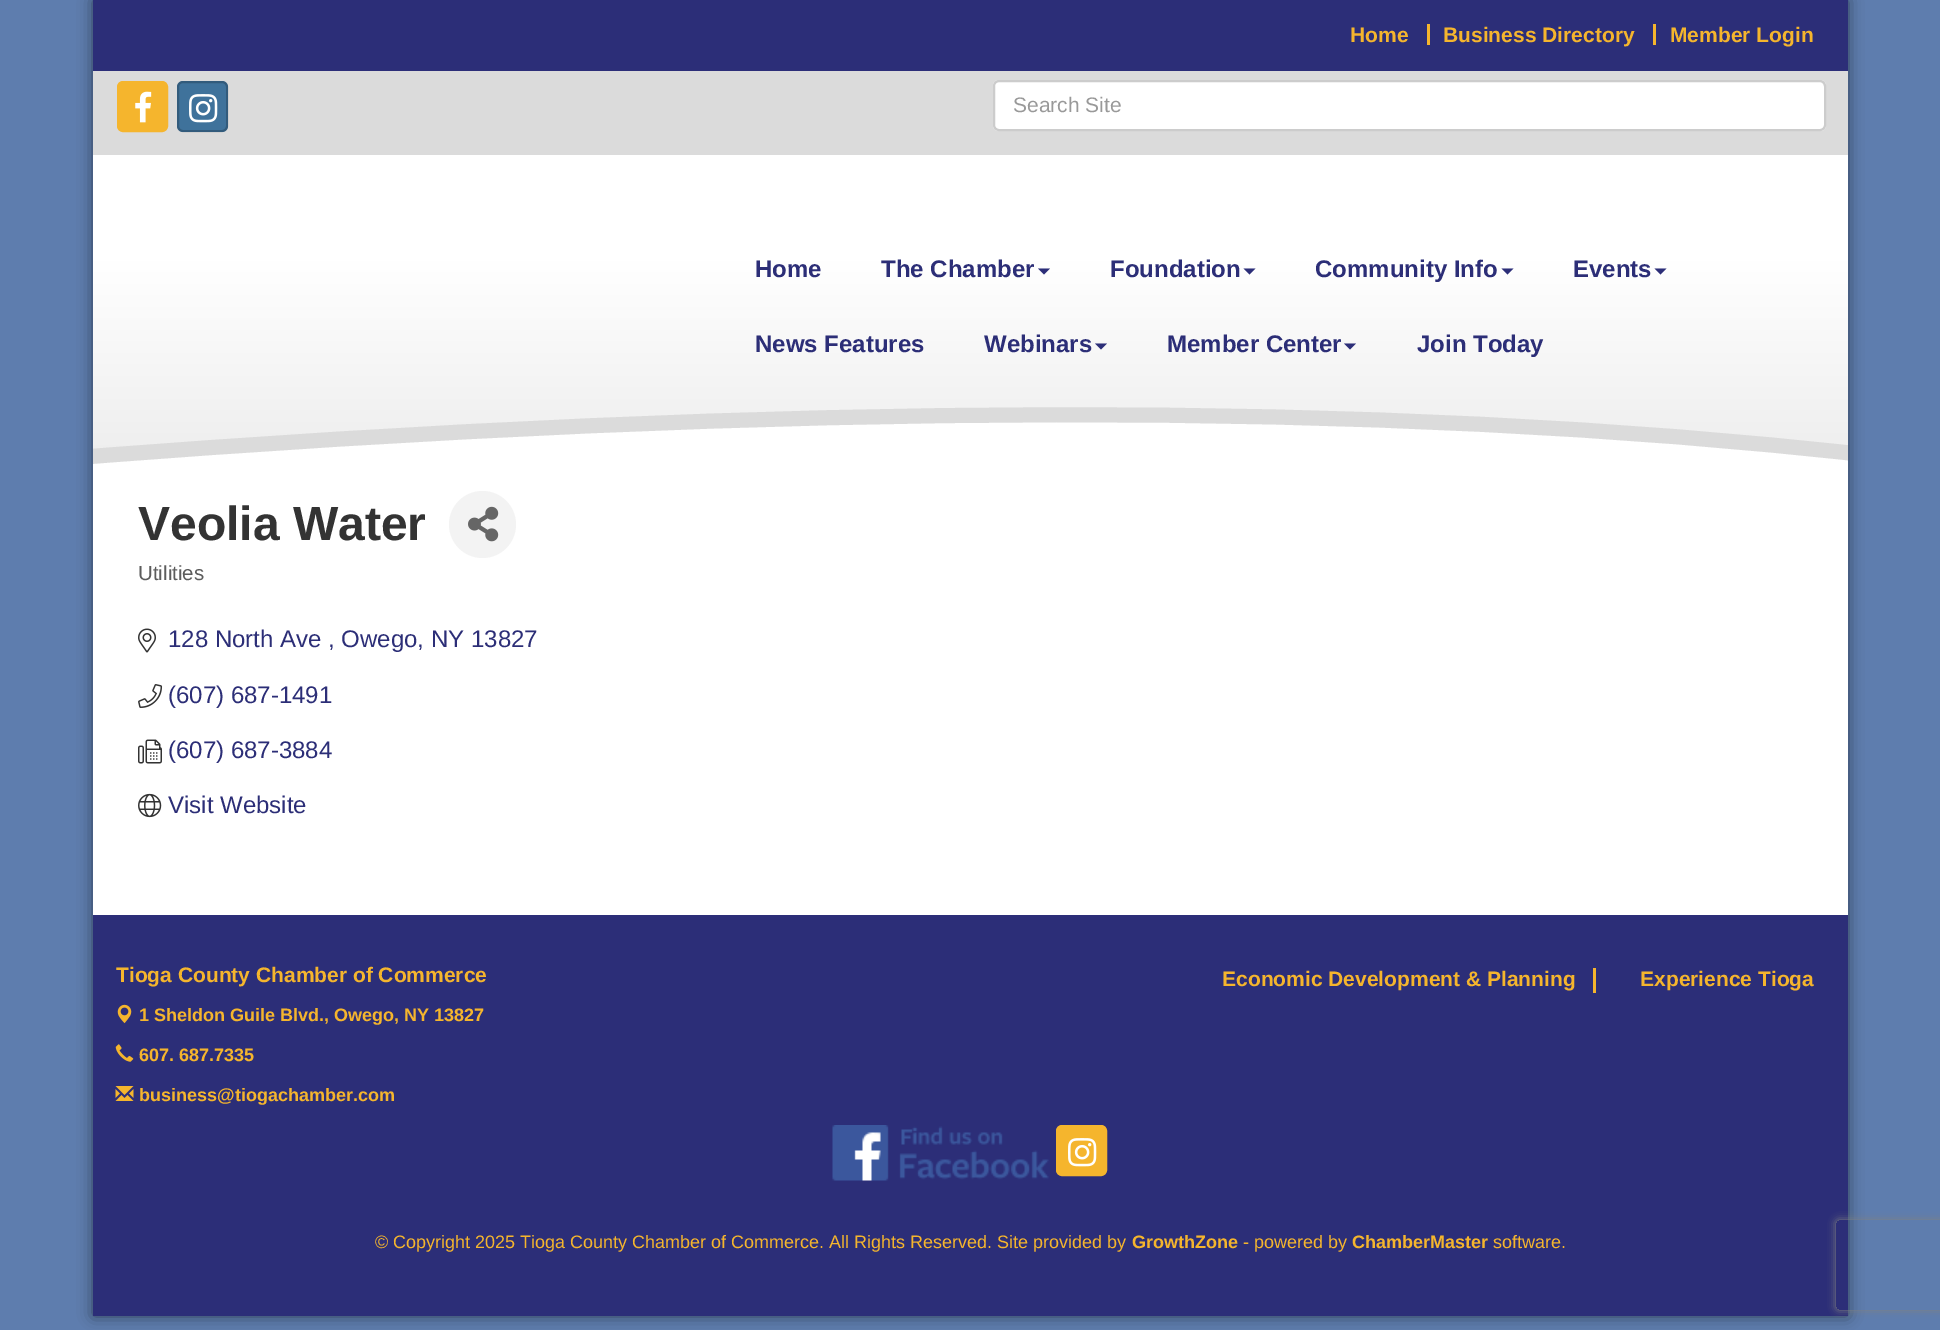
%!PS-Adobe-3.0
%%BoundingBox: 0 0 1940 1330
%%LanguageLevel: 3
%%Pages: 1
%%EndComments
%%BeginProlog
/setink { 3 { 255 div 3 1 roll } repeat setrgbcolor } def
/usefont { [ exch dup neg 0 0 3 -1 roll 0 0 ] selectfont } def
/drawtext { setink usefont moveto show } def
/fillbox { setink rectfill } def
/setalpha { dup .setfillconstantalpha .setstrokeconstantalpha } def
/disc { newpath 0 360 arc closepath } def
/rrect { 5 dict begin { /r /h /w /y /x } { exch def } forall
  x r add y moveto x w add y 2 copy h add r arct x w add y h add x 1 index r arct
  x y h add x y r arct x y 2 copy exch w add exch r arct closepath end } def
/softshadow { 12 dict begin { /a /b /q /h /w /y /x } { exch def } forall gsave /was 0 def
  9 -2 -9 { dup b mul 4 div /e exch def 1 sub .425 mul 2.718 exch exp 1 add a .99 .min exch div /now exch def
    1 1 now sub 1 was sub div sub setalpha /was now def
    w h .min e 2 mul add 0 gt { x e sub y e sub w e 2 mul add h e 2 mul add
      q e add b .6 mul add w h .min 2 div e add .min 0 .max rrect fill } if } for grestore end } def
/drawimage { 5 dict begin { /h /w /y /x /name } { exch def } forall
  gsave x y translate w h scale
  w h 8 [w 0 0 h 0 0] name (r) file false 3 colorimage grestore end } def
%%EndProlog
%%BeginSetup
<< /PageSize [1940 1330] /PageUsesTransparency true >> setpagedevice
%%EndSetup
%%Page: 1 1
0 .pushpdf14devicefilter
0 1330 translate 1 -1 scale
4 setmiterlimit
0 0 1940 1330 94 125 174 fillbox
0 0 0 setink
93 0 1755 1316 0 7.5 0.5 softshadow
93 155 1755 760 255 255 255 fillbox
93 0 1755 71 44 46 120 fillbox
(Home) 1350 42 /LiberationSans-Bold 21 245 181 45 drawtext
1427 24 3 21 245 181 45 fillbox
(Business Directory) 1443 42 /LiberationSans-Bold 21 245 181 45 drawtext
1653 24 3 21 245 181 45 fillbox
(Member Login) 1670 42 /LiberationSans-Bold 21 245 181 45 drawtext
93 71 1755 84 219 219 219 fillbox
245 181 45 setink
118 82 49 49 5 rrect gsave fill grestore
2 setlinewidth
stroke
(assets/img1.rgb) 135 91 17 32 drawimage
63 114 155 setink
177 81 51 51 6 rrect fill
0.2 setalpha
0 0 0 setink
178 82 49 49 5 rrect stroke
1 setalpha
(assets/img2.rgb) 189 94 29 29 drawimage
255 255 255 setink
993 80 833 51 6 rrect fill
236 236 236 setink
999 82 moveto 1820 82 lineto 1822 82 1824 85 1824 87 curveto 1824 86 lineto 1824 83 1822 81 1819 81 curveto 1000 81 lineto 998 81 996 82 995 84 curveto 996 83 998 82 999 82 curveto closepath fill
204 204 204 setink
994 81 831 49 5 rrect stroke
(Search Site) 1013 112 /LiberationSans-Regular 21 153 153 153 drawtext
gsave 1848 261 moveto 1848 452 lineto 1774 445 1296 406 952 417 curveto 614 422 486 431 93 456 curveto 93 261 lineto closepath clip newpath
<< /ShadingType 2 /ColorSpace /DeviceRGB /Coords [971 261 971 474] /Extend [true true] /Function << /FunctionType 2 /Domain [0 1] /C0 [1 1 1] /C1 [0.929 0.929 0.929] /N 1 >> >> shfill grestore
(Home) 755 277 /LiberationSans-Bold 24 44 46 119 drawtext
(The Chamber) 881 277 /LiberationSans-Bold 24 44 46 119 drawtext
44 46 120 setink
1038 268.5 moveto 1050 268.5 lineto 1044 274.5 lineto closepath fill
(Foundation) 1110 277 /LiberationSans-Bold 24 44 46 119 drawtext
44 46 120 setink
1243.5 268.5 moveto 1255.5 268.5 lineto 1249.5 274.5 lineto closepath fill
(Community Info) 1315 277 /LiberationSans-Bold 24 44 46 119 drawtext
44 46 120 setink
1501.5 268.5 moveto 1513.5 268.5 lineto 1507.5 274.5 lineto closepath fill
(Events) 1573 277 /LiberationSans-Bold 24 44 46 119 drawtext
44 46 120 setink
1654.5 268.5 moveto 1666.5 268.5 lineto 1660.5 274.5 lineto closepath fill
(News Features) 755 352 /LiberationSans-Bold 24 44 46 119 drawtext
(Webinars) 984 352 /LiberationSans-Bold 24 44 46 119 drawtext
44 46 120 setink
1095 343.5 moveto 1107 343.5 lineto 1101 349.5 lineto closepath fill
(Member Center) 1167 352 /LiberationSans-Bold 24 44 46 119 drawtext
44 46 120 setink
1344 343.5 moveto 1356 343.5 lineto 1350 349.5 lineto closepath fill
(Join Today) 1417 352 /LiberationSans-Bold 24 44 46 119 drawtext
gsave
93 261 1755 213 rectclip
219 219 219 setink
15 setlinewidth
78 457.5 moveto 788 401.5 1383 400.5 1863 454.5 curveto stroke
grestore
(Veolia Water) 138 540 /LiberationSans-Bold 48 51 51 51 drawtext
243 243 243 setink
482.5 524.5 33.5 disc fill
(assets/img3.rgb) 468 506 31 36 drawimage
(Utilities) 138 580 /LiberationSans-Regular 20.5 92 92 92 drawtext
(assets/img4.rgb) 138 628 18 25 drawimage
(128 North Ave , Owego, NY 13827) 168 647 /LiberationSans-Regular 24 44 46 119 drawtext
(assets/img5.rgb) 138 684 25 24 drawimage
(\(607\) 687-1491) 168 703 /LiberationSans-Regular 24 44 46 119 drawtext
(assets/img6.rgb) 138 739 24 25 drawimage
(\(607\) 687-3884) 168 758 /LiberationSans-Regular 24 44 46 119 drawtext
(assets/img7.rgb) 138 793 24 25 drawimage
(Visit Website) 168 813 /LiberationSans-Regular 24 44 46 119 drawtext
93 915 1755 401 44 46 120 fillbox
(Tioga County Chamber of Commerce) 116 982 /LiberationSans-Bold 21 245 181 45 drawtext
(assets/img8.rgb) 117 1004 15 20 drawimage
(1 Sheldon Guile Blvd., Owego, NY 13827) 139 1021 /LiberationSans-Bold 18 245 181 45 drawtext
(assets/img9.rgb) 115 1044 19 18 drawimage
(607. 687.7335) 139 1061 /LiberationSans-Bold 18 245 181 45 drawtext
(assets/img10.rgb) 115 1086 19 15 drawimage
(business@tiogachamber.com) 139 1101 /LiberationSans-Bold 18 245 181 45 drawtext
(Economic Development & Planning) 1222 986 /LiberationSans-Bold 21 245 181 45 drawtext
1593 968 3 25 245 181 45 fillbox
(Experience Tioga) 1640 986 /LiberationSans-Bold 21 245 181 45 drawtext
(assets/img11.rgb) 832 1125 217 56 drawimage
1057 1126 49 49 5 rrect gsave fill grestore
stroke
(assets/img12.rgb) 1068 1138 29 29 drawimage
(© Copyright 2025 Tioga County Chamber of Commerce. All Rights Reserved. Site provided by) 375 1248 /LiberationSans-Regular 18 245 181 45 drawtext
(GrowthZone) 1132 1248 /LiberationSans-Bold 18 245 181 45 drawtext
(- powered by) 1243 1248 /LiberationSans-Regular 18 245 181 45 drawtext
(ChamberMaster) 1352 1248 /LiberationSans-Bold 18 245 181 45 drawtext
(software.) 1493 1248 /LiberationSans-Regular 18 245 181 45 drawtext
gsave
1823 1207 moveto 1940 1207 lineto 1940 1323 lineto 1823 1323 lineto closepath 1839 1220 moveto 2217 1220 lineto 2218.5 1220 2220 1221.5 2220 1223 curveto 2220 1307 lineto 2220 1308.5 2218.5 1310 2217 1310 curveto 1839 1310 lineto 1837.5 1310 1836 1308.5 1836 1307 curveto 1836 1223 lineto 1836 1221.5 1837.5 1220 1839 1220 curveto closepath eoclip newpath
128 128 128 setink
1836 1220 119 90 3 4 1 softshadow
grestore
.poppdf14devicefilter showpage
%%EOF
